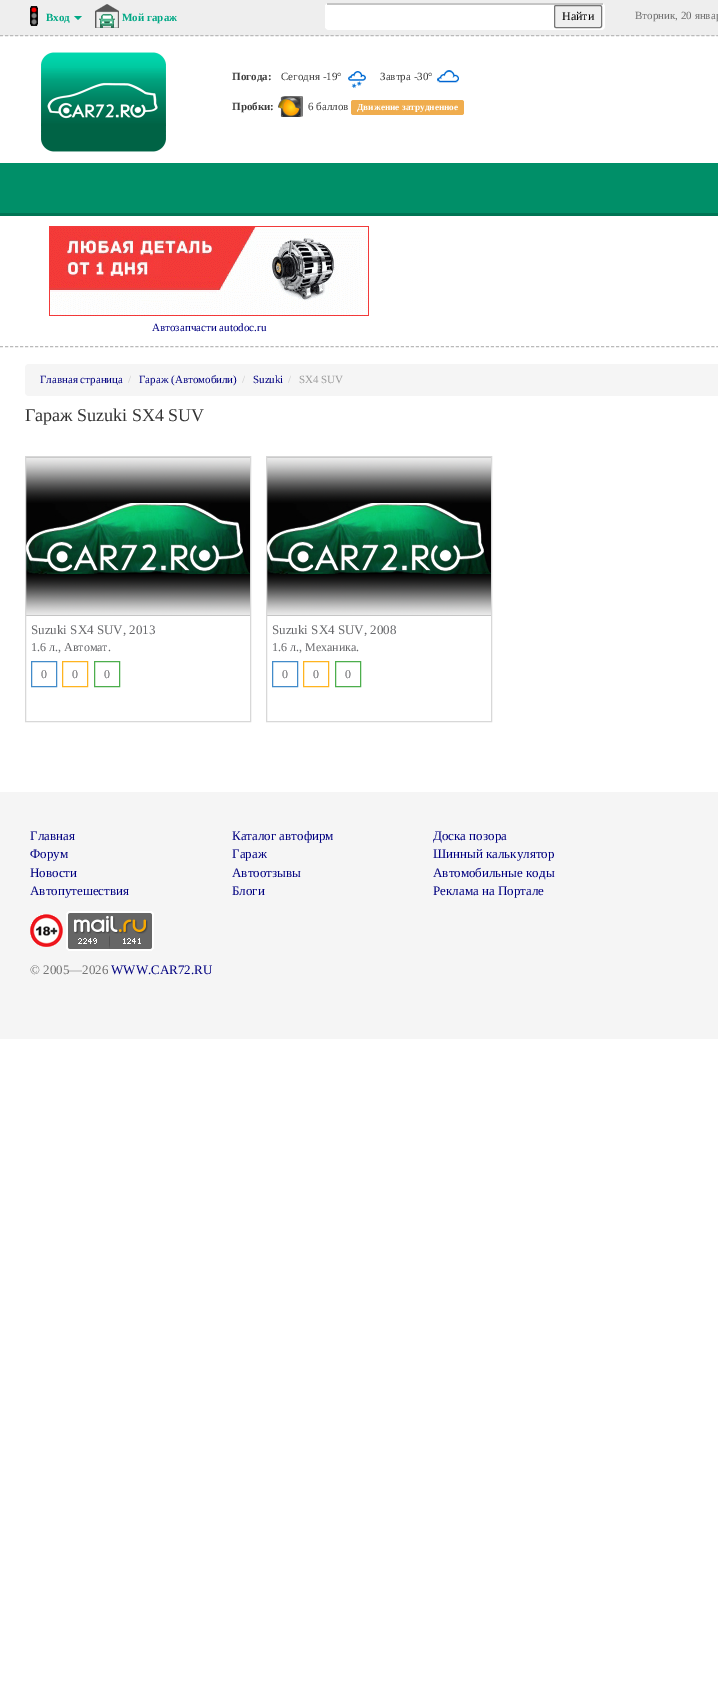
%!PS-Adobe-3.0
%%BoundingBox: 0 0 718 1691
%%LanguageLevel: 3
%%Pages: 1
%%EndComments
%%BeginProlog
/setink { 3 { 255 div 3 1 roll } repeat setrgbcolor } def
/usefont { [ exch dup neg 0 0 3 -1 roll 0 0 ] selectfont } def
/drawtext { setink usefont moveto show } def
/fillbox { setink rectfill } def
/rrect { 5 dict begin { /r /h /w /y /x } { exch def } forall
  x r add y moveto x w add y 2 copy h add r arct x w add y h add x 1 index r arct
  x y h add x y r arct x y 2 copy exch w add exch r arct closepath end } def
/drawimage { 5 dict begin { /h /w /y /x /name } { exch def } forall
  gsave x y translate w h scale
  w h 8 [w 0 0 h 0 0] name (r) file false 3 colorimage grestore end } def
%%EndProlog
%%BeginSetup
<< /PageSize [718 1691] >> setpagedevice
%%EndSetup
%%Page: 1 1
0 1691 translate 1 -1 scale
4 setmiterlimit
0 0 718 1691 255 255 255 fillbox
0 0 718 36 238 238 238 fillbox
186 186 186 setink
[3 2.01] 0 setdash
0 35.5 moveto 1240 35.5 lineto stroke
(assets/img1.rgb) 30 6 8 20 drawimage
(Вход) 46 21 /LiberationSerif-Bold 11 1 169 134 drawtext
74 16 moveto 82 16 lineto 78 20 lineto closepath fill
(assets/img2.rgb) 95 4 24 24 drawimage
(Мой гараж) 122 21 /LiberationSerif-Bold 11 1 169 134 drawtext
255 255 255 setink
325 3 280 27 4 rrect fill
327 3 276 2 197 197 197 fillbox
325 5 1 23 255 255 255 fillbox
239 239 239 setink
554.5 5.5 47 22 1.5 rrect gsave fill grestore
118 118 118 setink
[] 0 setdash
stroke
(Найти) 562 20 /LiberationSerif-Regular 12 0 0 0 drawtext
(Вторник, 20 январ) 635 19 /LiberationSerif-Regular 11 109 109 109 drawtext
(assets/img3.rgb) 41 52 125 100 drawimage
(Погода:) 232 80 /LiberationSerif-Bold 11 61 61 61 drawtext
(Сегодня -19°) 281 80 /LiberationSerif-Regular 11 61 61 61 drawtext
(assets/img4.rgb) 348 71 18 17 drawimage
(Завтра -30°) 380 80 /LiberationSerif-Regular 11 61 61 61 drawtext
(assets/img5.rgb) 437 70 22 13 drawimage
(Пробки:) 232 110 /LiberationSerif-Bold 11 61 61 61 drawtext
(assets/img6.rgb) 278 96 25 21 drawimage
(6 баллов) 308 110 /LiberationSerif-Regular 11 61 61 61 drawtext
240 173 78 setink
351 100 113 15 2.5 rrect fill
(Движение затрудненное) 357 110 /LiberationSerif-Bold 9.3 255 255 255 drawtext
0 163 718 50 0 143 104 fillbox
0 213 718 3 0 116 84 fillbox
186 186 186 setink
[3 2.01] 0 setdash
0 346.5 moveto 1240 346.5 lineto stroke
(assets/img7.rgb) 49 226 320 90 drawimage
(Автозапчасти autodoc.ru) 152 331 /LiberationSerif-Regular 11 0 0 128 drawtext
245 245 245 setink
25 364 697 32 4 rrect fill
(Главная страница) 40 383 /LiberationSerif-Regular 11 0 0 128 drawtext
(/) 128 383 /LiberationSerif-Regular 11 204 204 204 drawtext
(Гараж \(Автомобили\)) 139 383 /LiberationSerif-Regular 11 0 0 128 drawtext
(/) 242 383 /LiberationSerif-Regular 11 204 204 204 drawtext
(Suzuki) 253 383 /LiberationSerif-Regular 11 0 0 128 drawtext
(/) 288 383 /LiberationSerif-Regular 11 204 204 204 drawtext
(SX4 SUV) 299 383 /LiberationSerif-Regular 11 153 153 153 drawtext
(Гараж Suzuki SX4 SUV) 25 421 /LiberationSerif-Regular 18 51 51 51 drawtext
(assets/img8.rgb) 26 457 224 159 drawimage
216 216 216 setink
[] 0 setdash
25.5 456.5 225 265 rectstroke
(Suzuki SX4 SUV, 2013) 31 634 /LiberationSerif-Regular 13 102 103 106 drawtext
(1.6 л., Автомат.) 31 651 /LiberationSerif-Regular 12 102 103 106 drawtext
66 139 202 setink
31.5 661.5 25 25 rectstroke
(0) 41 678 /LiberationSerif-Regular 12 102 103 106 drawtext
255 180 31 setink
62.5 661.5 25 25 rectstroke
(0) 72 678 /LiberationSerif-Regular 12 102 103 106 drawtext
76 174 76 setink
94.5 661.5 25 25 rectstroke
(0) 104 678 /LiberationSerif-Regular 12 102 103 106 drawtext
(assets/img8.rgb) 267 457 224 159 drawimage
216 216 216 setink
266.5 456.5 225 265 rectstroke
(Suzuki SX4 SUV, 2008) 272 634 /LiberationSerif-Regular 13 102 103 106 drawtext
(1.6 л., Механика.) 272 651 /LiberationSerif-Regular 12 102 103 106 drawtext
66 139 202 setink
272.5 661.5 25 25 rectstroke
(0) 282 678 /LiberationSerif-Regular 12 102 103 106 drawtext
255 180 31 setink
303.5 661.5 25 25 rectstroke
(0) 313 678 /LiberationSerif-Regular 12 102 103 106 drawtext
76 174 76 setink
335.5 661.5 25 25 rectstroke
(0) 345 678 /LiberationSerif-Regular 12 102 103 106 drawtext
0 792 718 247 245 245 245 fillbox
(Главная) 30 840 /LiberationSerif-Regular 13 0 0 128 drawtext
(Форум) 30 858 /LiberationSerif-Regular 13 0 0 128 drawtext
(Новости) 30 877 /LiberationSerif-Regular 13 0 0 128 drawtext
(Автопутешествия) 30 895 /LiberationSerif-Regular 13 0 0 128 drawtext
(Каталог автофирм) 232 840 /LiberationSerif-Regular 13 0 0 128 drawtext
(Гараж) 232 858 /LiberationSerif-Regular 13 0 0 128 drawtext
(Автоотзывы) 232 877 /LiberationSerif-Regular 13 0 0 128 drawtext
(Блоги) 232 895 /LiberationSerif-Regular 13 0 0 128 drawtext
(Доска позора) 433 840 /LiberationSerif-Regular 13 0 0 128 drawtext
(Шинный калькулятор) 433 858 /LiberationSerif-Regular 13 0 0 128 drawtext
(Автомобильные коды) 433 877 /LiberationSerif-Regular 13 0 0 128 drawtext
(Реклама на Портале) 433 895 /LiberationSerif-Regular 13 0 0 128 drawtext
(assets/img9.rgb) 30 914 33 33 drawimage
(assets/img10.rgb) 66 911 88 40 drawimage
(© 2005—2026) 30 974 /LiberationSerif-Regular 13 116 116 116 drawtext
(WWW.CAR72.RU) 111 974 /LiberationSerif-Regular 13 0 0 128 drawtext
showpage
%%EOF
